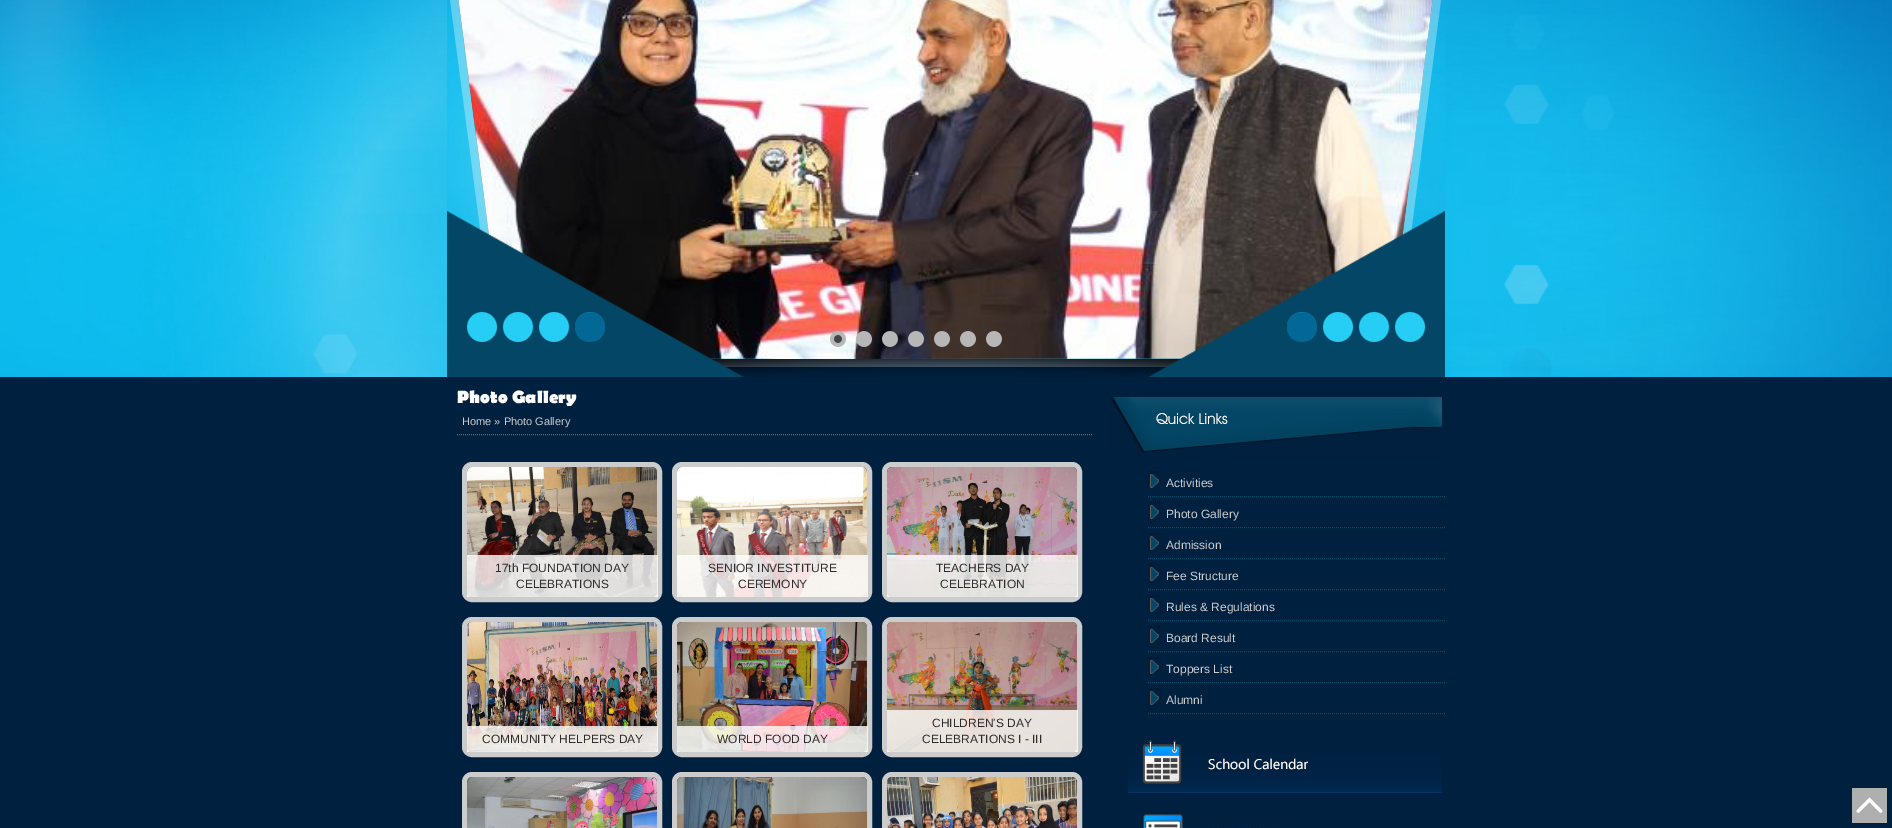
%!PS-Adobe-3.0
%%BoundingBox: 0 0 1892 828
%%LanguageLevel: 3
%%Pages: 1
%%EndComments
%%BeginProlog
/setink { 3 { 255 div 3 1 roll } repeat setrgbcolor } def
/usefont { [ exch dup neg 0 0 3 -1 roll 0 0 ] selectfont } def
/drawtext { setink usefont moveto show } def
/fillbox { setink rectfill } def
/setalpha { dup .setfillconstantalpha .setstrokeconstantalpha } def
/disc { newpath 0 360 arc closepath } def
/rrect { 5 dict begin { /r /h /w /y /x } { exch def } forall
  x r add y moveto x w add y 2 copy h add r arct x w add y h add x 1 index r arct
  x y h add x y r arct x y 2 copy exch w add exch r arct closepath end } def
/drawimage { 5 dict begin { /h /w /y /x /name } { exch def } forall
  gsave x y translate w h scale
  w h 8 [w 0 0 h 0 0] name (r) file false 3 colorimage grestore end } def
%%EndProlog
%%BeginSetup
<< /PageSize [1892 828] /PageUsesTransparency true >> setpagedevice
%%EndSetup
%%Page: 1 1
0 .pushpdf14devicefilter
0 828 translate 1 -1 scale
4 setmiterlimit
0 0 1892 828 0 32 63 fillbox
(assets/img1.rgb) 0 0 1892 377 drawimage
(assets/img3.rgb) 458 0 975 359 drawimage
183 183 183 setink
838 339 8 disc fill
67 70 72 setink
838 339 4 disc fill
183 183 183 setink
864 339 8 disc fill
890 339 8 disc fill
916 339 8 disc fill
942 339 8 disc fill
968 339 8 disc fill
994 339 8 disc fill
(assets/img2.rgb) 447 0 998 377 drawimage
(assets/img4.rgb) 447 211 297 166 drawimage
(assets/img5.rgb) 1148 211 297 166 drawimage
(Photo Gallery) 457 403 /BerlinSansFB-Bold 18 255 255 255 drawtext
102 102 102 setink
[1 1] 0 setdash
457 434.5 moveto 1092 434.5 lineto stroke
(Home » Photo Gallery) 462 425 /LiberationSans-Regular 11 204 204 204 drawtext
5 setlinewidth
[] 0 setdash
464.5 464.5 195 135 7.5 rrect stroke
(assets/img6.rgb) 467 467 190 130 drawimage
0.8 setalpha
467 555 191 42 255 255 255 fillbox
1 setalpha
(17th FOUNDATION DAY) 495 572 /LiberationSans-Regular 12 44 44 44 drawtext
(CELEBRATIONS) 516 588 /LiberationSans-Regular 12 44 44 44 drawtext
204 204 204 setink
674.5 464.5 195 135 7.5 rrect stroke
(assets/img7.rgb) 677 467 190 130 drawimage
0.8 setalpha
677 555 191 42 255 255 255 fillbox
1 setalpha
(SENIOR INVESTITURE) 708 572 /LiberationSans-Regular 12 44 44 44 drawtext
(CEREMONY) 738 588 /LiberationSans-Regular 12 44 44 44 drawtext
204 204 204 setink
884.5 464.5 195 135 7.5 rrect stroke
(assets/img8.rgb) 887 467 190 130 drawimage
0.8 setalpha
887 555 191 42 255 255 255 fillbox
1 setalpha
(TEACHERS DAY) 936 572 /LiberationSans-Regular 12 44 44 44 drawtext
(CELEBRATION) 940 588 /LiberationSans-Regular 12 44 44 44 drawtext
204 204 204 setink
464.5 619.5 195 135 7.5 rrect stroke
(assets/img9.rgb) 467 622 190 130 drawimage
0.8 setalpha
467 726 191 26 255 255 255 fillbox
1 setalpha
(COMMUNITY HELPERS DAY) 482 743 /LiberationSans-Regular 12 44 44 44 drawtext
204 204 204 setink
674.5 619.5 195 135 7.5 rrect stroke
(assets/img10.rgb) 677 622 190 130 drawimage
0.8 setalpha
677 726 191 26 255 255 255 fillbox
1 setalpha
(WORLD FOOD DAY) 717 743 /LiberationSans-Regular 12 44 44 44 drawtext
204 204 204 setink
884.5 619.5 195 135 7.5 rrect stroke
(assets/img11.rgb) 887 622 190 130 drawimage
0.8 setalpha
887 710 191 42 255 255 255 fillbox
1 setalpha
(CHILDREN'S DAY) 932 727 /LiberationSans-Regular 12 44 44 44 drawtext
(CELEBRATIONS I - III) 922 743 /LiberationSans-Regular 12 44 44 44 drawtext
204 204 204 setink
464.5 774.5 195 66 7.5 rrect stroke
(assets/img12.rgb) 467 777 190 51 drawimage
674.5 774.5 195 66 7.5 rrect stroke
(assets/img13.rgb) 677 777 190 51 drawimage
884.5 774.5 195 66 7.5 rrect stroke
(assets/img14.rgb) 887 777 190 51 drawimage
(assets/img15.rgb) 1111 397 331 56 drawimage
(assets/img16.rgb) 1148 471 13 17 drawimage
8 73 103 setink
1 setlinewidth
[1 1] 0 setdash
1148 496.5 moveto 1445 496.5 lineto stroke
(Activities) 1166 487 /LiberationSans-Regular 12 204 204 204 drawtext
(assets/img16.rgb) 1148 502 13 17 drawimage
8 73 103 setink
1148 527.5 moveto 1445 527.5 lineto stroke
(Photo Gallery) 1166 518 /LiberationSans-Regular 12 204 204 204 drawtext
(assets/img16.rgb) 1148 533 13 17 drawimage
8 73 103 setink
1148 558.5 moveto 1445 558.5 lineto stroke
(Admission) 1166 549 /LiberationSans-Regular 12 204 204 204 drawtext
(assets/img16.rgb) 1148 564 13 17 drawimage
8 73 103 setink
1148 589.5 moveto 1445 589.5 lineto stroke
(Fee Structure) 1166 580 /LiberationSans-Regular 12 204 204 204 drawtext
(assets/img16.rgb) 1148 595 13 17 drawimage
8 73 103 setink
1148 620.5 moveto 1445 620.5 lineto stroke
(Rules & Regulations) 1166 611 /LiberationSans-Regular 12 204 204 204 drawtext
(assets/img16.rgb) 1148 626 13 17 drawimage
8 73 103 setink
1148 651.5 moveto 1445 651.5 lineto stroke
(Board Result) 1166 642 /LiberationSans-Regular 12 204 204 204 drawtext
(assets/img16.rgb) 1148 657 13 17 drawimage
8 73 103 setink
1148 682.5 moveto 1445 682.5 lineto stroke
(Toppers List) 1166 673 /LiberationSans-Regular 12 204 204 204 drawtext
(assets/img16.rgb) 1148 688 13 17 drawimage
8 73 103 setink
1148 713.5 moveto 1445 713.5 lineto stroke
(Alumni) 1166 704 /LiberationSans-Regular 12 204 204 204 drawtext
(assets/img17.rgb) 1128 740 314 53 drawimage
(assets/img18.rgb) 1136 811 165 17 drawimage
(assets/img19.rgb) 1852 788 35 35 drawimage
.poppdf14devicefilter showpage
%%EOF
